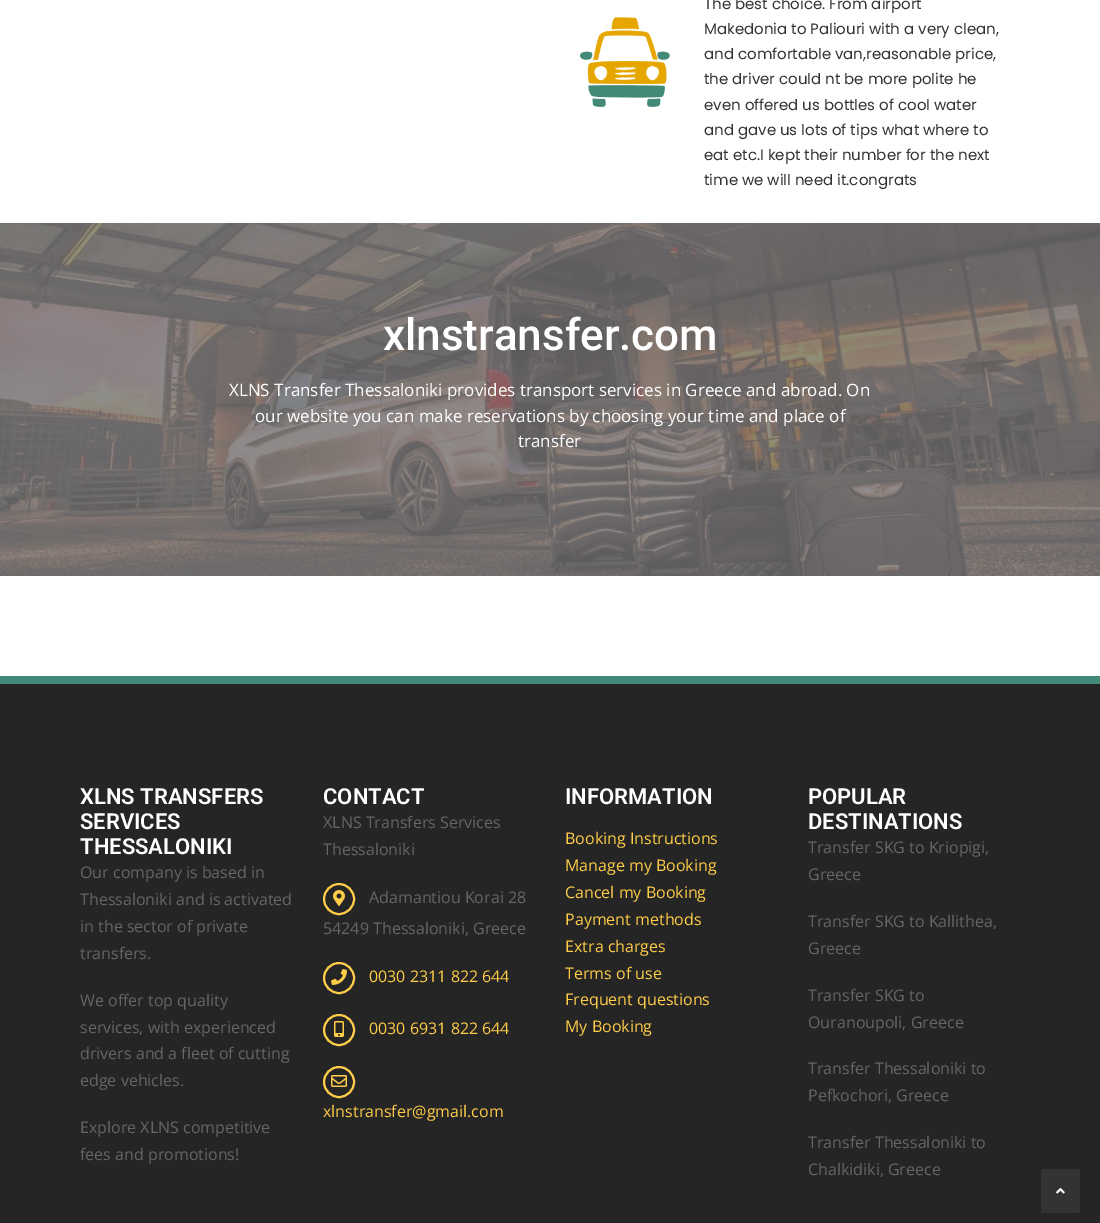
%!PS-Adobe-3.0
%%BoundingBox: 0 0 1100 1223
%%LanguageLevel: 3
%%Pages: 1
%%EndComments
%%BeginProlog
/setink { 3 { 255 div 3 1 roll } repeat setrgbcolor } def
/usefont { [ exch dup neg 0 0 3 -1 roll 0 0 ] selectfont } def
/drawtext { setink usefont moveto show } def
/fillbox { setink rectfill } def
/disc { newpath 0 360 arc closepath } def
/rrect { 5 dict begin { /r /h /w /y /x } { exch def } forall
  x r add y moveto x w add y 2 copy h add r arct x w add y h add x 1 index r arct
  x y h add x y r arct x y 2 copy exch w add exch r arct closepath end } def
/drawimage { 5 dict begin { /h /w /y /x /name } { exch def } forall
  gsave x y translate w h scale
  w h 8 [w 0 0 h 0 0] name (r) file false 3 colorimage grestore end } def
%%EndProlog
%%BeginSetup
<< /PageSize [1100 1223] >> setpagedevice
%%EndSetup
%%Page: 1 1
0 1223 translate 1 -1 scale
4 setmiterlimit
0 0 1100 1223 255 255 255 fillbox
(assets/img1.rgb) 580 17 90 90 drawimage
(The best choice. From airport) 704 9 /Poppins-Regular 15 51 51 51 drawtext
(Makedonia to Paliouri with a very clean,) 704 34 /Poppins-Regular 15 51 51 51 drawtext
(and comfortable van,reasonable price,) 704 59 /Poppins-Regular 15 51 51 51 drawtext
(the driver could nt be more polite he) 704 84 /Poppins-Regular 15 51 51 51 drawtext
(even offered us bottles of cool water) 704 110 /Poppins-Regular 15 51 51 51 drawtext
(and gave us lots of tips what where to) 704 135 /Poppins-Regular 15 51 51 51 drawtext
(eat etc.I kept their number for the next) 704 160 /Poppins-Regular 15 51 51 51 drawtext
(time we will need it.congrats) 704 185 /Poppins-Regular 15 51 51 51 drawtext
(assets/img2.rgb) 0 223 1100 353 drawimage
(xlnstransfer.com) 383 350 /Roboto-Medium 44 255 255 255 drawtext
(XLNS Transfer Thessaloniki provides transport services in Greece and abroad. On) 229 396 /OpenSans-Regular 17 255 255 255 drawtext
(our website you can make reservations by choosing your time and place of) 255 422 /OpenSans-Regular 17 255 255 255 drawtext
(transfer) 518 447 /OpenSans-Regular 17 255 255 255 drawtext
0 684 1100 539 37 37 37 fillbox
0 676 1100 8 67 137 119 fillbox
(XLNS TRANSFERS) 80 804 /Roboto-SemiBold 22 255 255 255 drawtext
(SERVICES) 80 829 /Roboto-SemiBold 22 255 255 255 drawtext
(THESSALONIKI) 80 854 /Roboto-SemiBold 22 255 255 255 drawtext
(Our company is based in) 80 878 /OpenSans-Regular 16 102 102 102 drawtext
(Thessaloniki and is activated) 80 905 /OpenSans-Regular 16 102 102 102 drawtext
(in the sector of private) 80 932 /OpenSans-Regular 16 102 102 102 drawtext
(transfers.) 80 959 /OpenSans-Regular 16 102 102 102 drawtext
(We offer top quality) 80 1006 /OpenSans-Regular 16 102 102 102 drawtext
(services, with experienced) 80 1033 /OpenSans-Regular 16 102 102 102 drawtext
(drivers and a fleet of cutting) 80 1059 /OpenSans-Regular 16 102 102 102 drawtext
(edge vehicles.) 80 1086 /OpenSans-Regular 16 102 102 102 drawtext
(Explore XLNS competitive) 80 1133 /OpenSans-Regular 16 102 102 102 drawtext
(fees and promotions!) 80 1160 /OpenSans-Regular 16 102 102 102 drawtext
(CONTACT) 323 804 /Roboto-SemiBold 22 255 255 255 drawtext
(XLNS Transfers Services) 323 828 /OpenSans-Regular 16 102 102 102 drawtext
(Thessaloniki) 323 855 /OpenSans-Regular 16 102 102 102 drawtext
255 205 72 setink
2 setlinewidth
339 899 15 disc stroke
(assets/img3.rgb) 333 890 12 16 drawimage
(Adamantiou Korai 28) 369 903 /OpenSans-Regular 16 102 102 102 drawtext
(54249 Thessaloniki, Greece) 323 934 /OpenSans-Regular 16 102 102 102 drawtext
255 205 72 setink
339 978 15 disc stroke
(assets/img4.rgb) 331 969 16 16 drawimage
(0030 2311 822 644) 369 982 /OpenSans-Regular 16 255 205 72 drawtext
339 1030 15 disc stroke
(assets/img5.rgb) 334 1021 10 16 drawimage
(0030 6931 822 644) 369 1034 /OpenSans-Regular 16 255 205 72 drawtext
339 1082 15 disc stroke
(assets/img6.rgb) 331 1075 16 12 drawimage
(xlnstransfer@gmail.com) 323 1117 /OpenSans-Regular 16 255 205 72 drawtext
(INFORMATION) 565 804 /Roboto-SemiBold 22 255 255 255 drawtext
(Booking Instructions) 565 844 /OpenSans-Regular 16 255 205 72 drawtext
(Manage my Booking) 565 871 /OpenSans-Regular 16 255 205 72 drawtext
(Cancel my Booking) 565 898 /OpenSans-Regular 16 255 205 72 drawtext
(Payment methods) 565 925 /OpenSans-Regular 16 255 205 72 drawtext
(Extra charges) 565 952 /OpenSans-Regular 16 255 205 72 drawtext
(Terms of use) 565 979 /OpenSans-Regular 16 255 205 72 drawtext
(Frequent questions) 565 1005 /OpenSans-Regular 16 255 205 72 drawtext
(My Booking) 565 1032 /OpenSans-Regular 16 255 205 72 drawtext
(POPULAR) 808 804 /Roboto-SemiBold 22 255 255 255 drawtext
(DESTINATIONS) 808 829 /Roboto-SemiBold 22 255 255 255 drawtext
(Transfer SKG to Kriopigi,) 808 853 /OpenSans-Regular 16 102 102 102 drawtext
(Greece) 808 880 /OpenSans-Regular 16 102 102 102 drawtext
(Transfer SKG to Kallithea,) 808 927 /OpenSans-Regular 16 102 102 102 drawtext
(Greece) 808 954 /OpenSans-Regular 16 102 102 102 drawtext
(Transfer SKG to) 808 1001 /OpenSans-Regular 16 102 102 102 drawtext
(Ouranoupoli, Greece) 808 1028 /OpenSans-Regular 16 102 102 102 drawtext
(Transfer Thessaloniki to) 808 1074 /OpenSans-Regular 16 102 102 102 drawtext
(Pefkochori, Greece) 808 1101 /OpenSans-Regular 16 102 102 102 drawtext
(Transfer Thessaloniki to) 808 1148 /OpenSans-Regular 16 102 102 102 drawtext
(Chalkidiki, Greece) 808 1175 /OpenSans-Regular 16 102 102 102 drawtext
51 51 51 setink
1041 1169 39 44 2 rrect fill
(assets/img7.rgb) 1056 1188 9 6 drawimage
showpage
%%EOF
